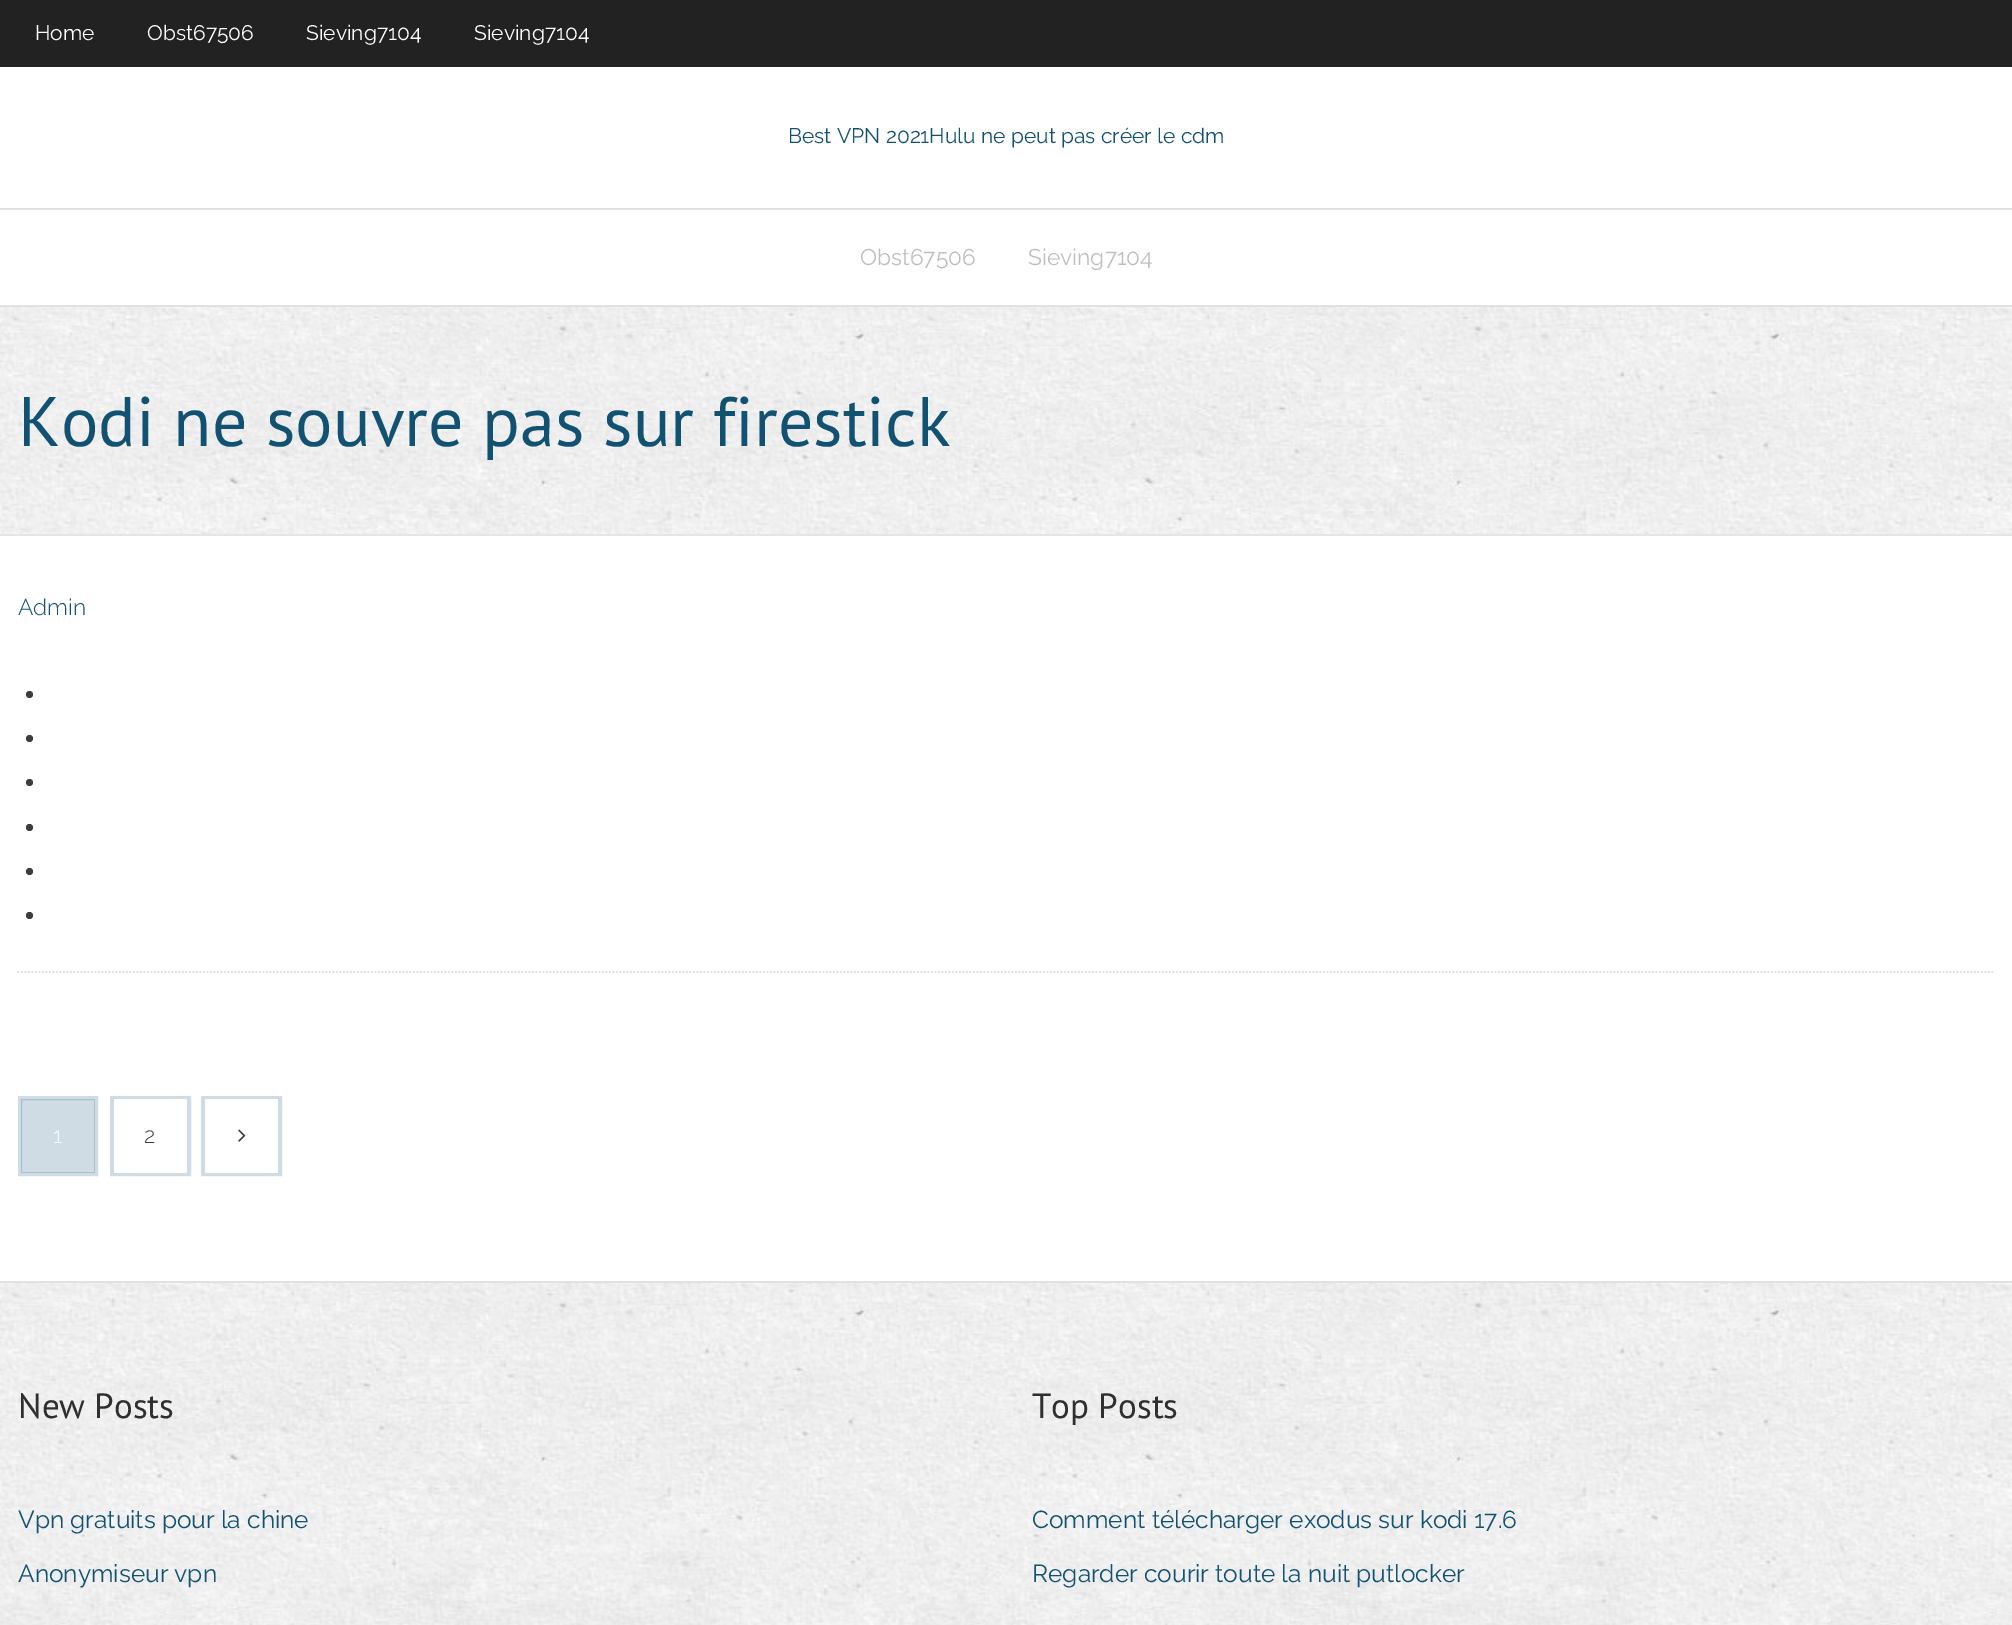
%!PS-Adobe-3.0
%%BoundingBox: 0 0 2012 1625
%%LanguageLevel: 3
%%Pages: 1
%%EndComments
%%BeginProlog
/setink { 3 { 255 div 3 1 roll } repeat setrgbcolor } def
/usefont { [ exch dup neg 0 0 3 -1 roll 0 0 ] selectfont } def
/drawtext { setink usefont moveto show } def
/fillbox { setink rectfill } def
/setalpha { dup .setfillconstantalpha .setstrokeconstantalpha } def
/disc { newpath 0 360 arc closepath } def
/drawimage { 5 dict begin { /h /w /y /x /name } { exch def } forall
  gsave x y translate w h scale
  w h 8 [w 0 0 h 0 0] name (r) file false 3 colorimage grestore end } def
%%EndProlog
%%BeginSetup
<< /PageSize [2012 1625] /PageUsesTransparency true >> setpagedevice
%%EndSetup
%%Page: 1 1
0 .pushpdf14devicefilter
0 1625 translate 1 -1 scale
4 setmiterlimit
0 0 2012 1625 255 255 255 fillbox
0 0 2012 67 34 34 34 fillbox
(Home) 35 40 /Raleway-Regular 21 255 255 255 drawtext
(Obst67506) 147 40 /Raleway-Regular 21 255 255 255 drawtext
(Sieving7104) 306 40 /Raleway-Regular 21 255 255 255 drawtext
(Sieving7104) 474 40 /Raleway-Regular 21 255 255 255 drawtext
(Best VPN 2021Hulu ne peut pas créer le cdm) 788 143 /Raleway-Regular 21 17 81 114 drawtext
0 208 2012 2 225 225 225 fillbox
0 305 2012 2 225 225 225 fillbox
(Obst67506) 860 265 /Raleway-Regular 22.75 190 190 190 drawtext
(Sieving7104) 1028 265 /Raleway-Regular 22.75 190 190 190 drawtext
(assets/img1.rgb) 0 307 2012 227 drawimage
0 534 2012 2 229 229 229 fillbox
(Kodi ne souvre pas sur firestick) 18 446 /PTSans-Regular 70 17 81 114 drawtext
221 221 221 setink
1.8 setlinewidth
[1.75 1.75] 0 setdash
17.5 972 moveto 1995 972 lineto stroke
(Admin) 18 615 /Raleway-Light 22.75 17 81 114 drawtext
61 61 61 setink
29.5 694.5 3.5 disc fill
29.5 738.5 3.5 disc fill
29.5 782.5 3.5 disc fill
29.5 827.5 3.5 disc fill
29.5 871.5 3.5 disc fill
29.5 915.5 3.5 disc fill
207 220 227 setink
4 setlinewidth
[] 0 setdash
20 1098 76 76 rectstroke
0.2 setalpha
21 1099 74 74 17 81 114 fillbox
1 setalpha
(1) 53 1143 /Raleway-Light 22 255 255 255 drawtext
207 220 227 setink
112 1098 77 76 rectstroke
114 1099 73 74 255 255 255 fillbox
(2) 144 1143 /Raleway-Light 22 61 61 61 drawtext
207 220 227 setink
203 1098 77 76 rectstroke
205 1099 73 74 255 255 255 fillbox
(assets/img2.rgb) 238 1129 8 13 drawimage
(assets/img3.rgb) 0 1283 2012 342 drawimage
0 1281 2012 2 225 225 225 fillbox
(New Posts) 18 1418 /PTSans-Regular 35 47 47 47 drawtext
(Vpn gratuits pour la chine) 18 1528 /Raleway-Regular 24.5 17 81 114 drawtext
(Anonymiseur vpn) 18 1582 /Raleway-Regular 24.5 17 81 114 drawtext
(Top Posts) 1032 1418 /PTSans-Regular 35 47 47 47 drawtext
(Comment télécharger exodus sur kodi 17.6) 1032 1528 /Raleway-Regular 24.5 17 81 114 drawtext
(Regarder courir toute la nuit putlocker) 1032 1582 /Raleway-Regular 24.5 17 81 114 drawtext
.poppdf14devicefilter showpage
%%EOF
